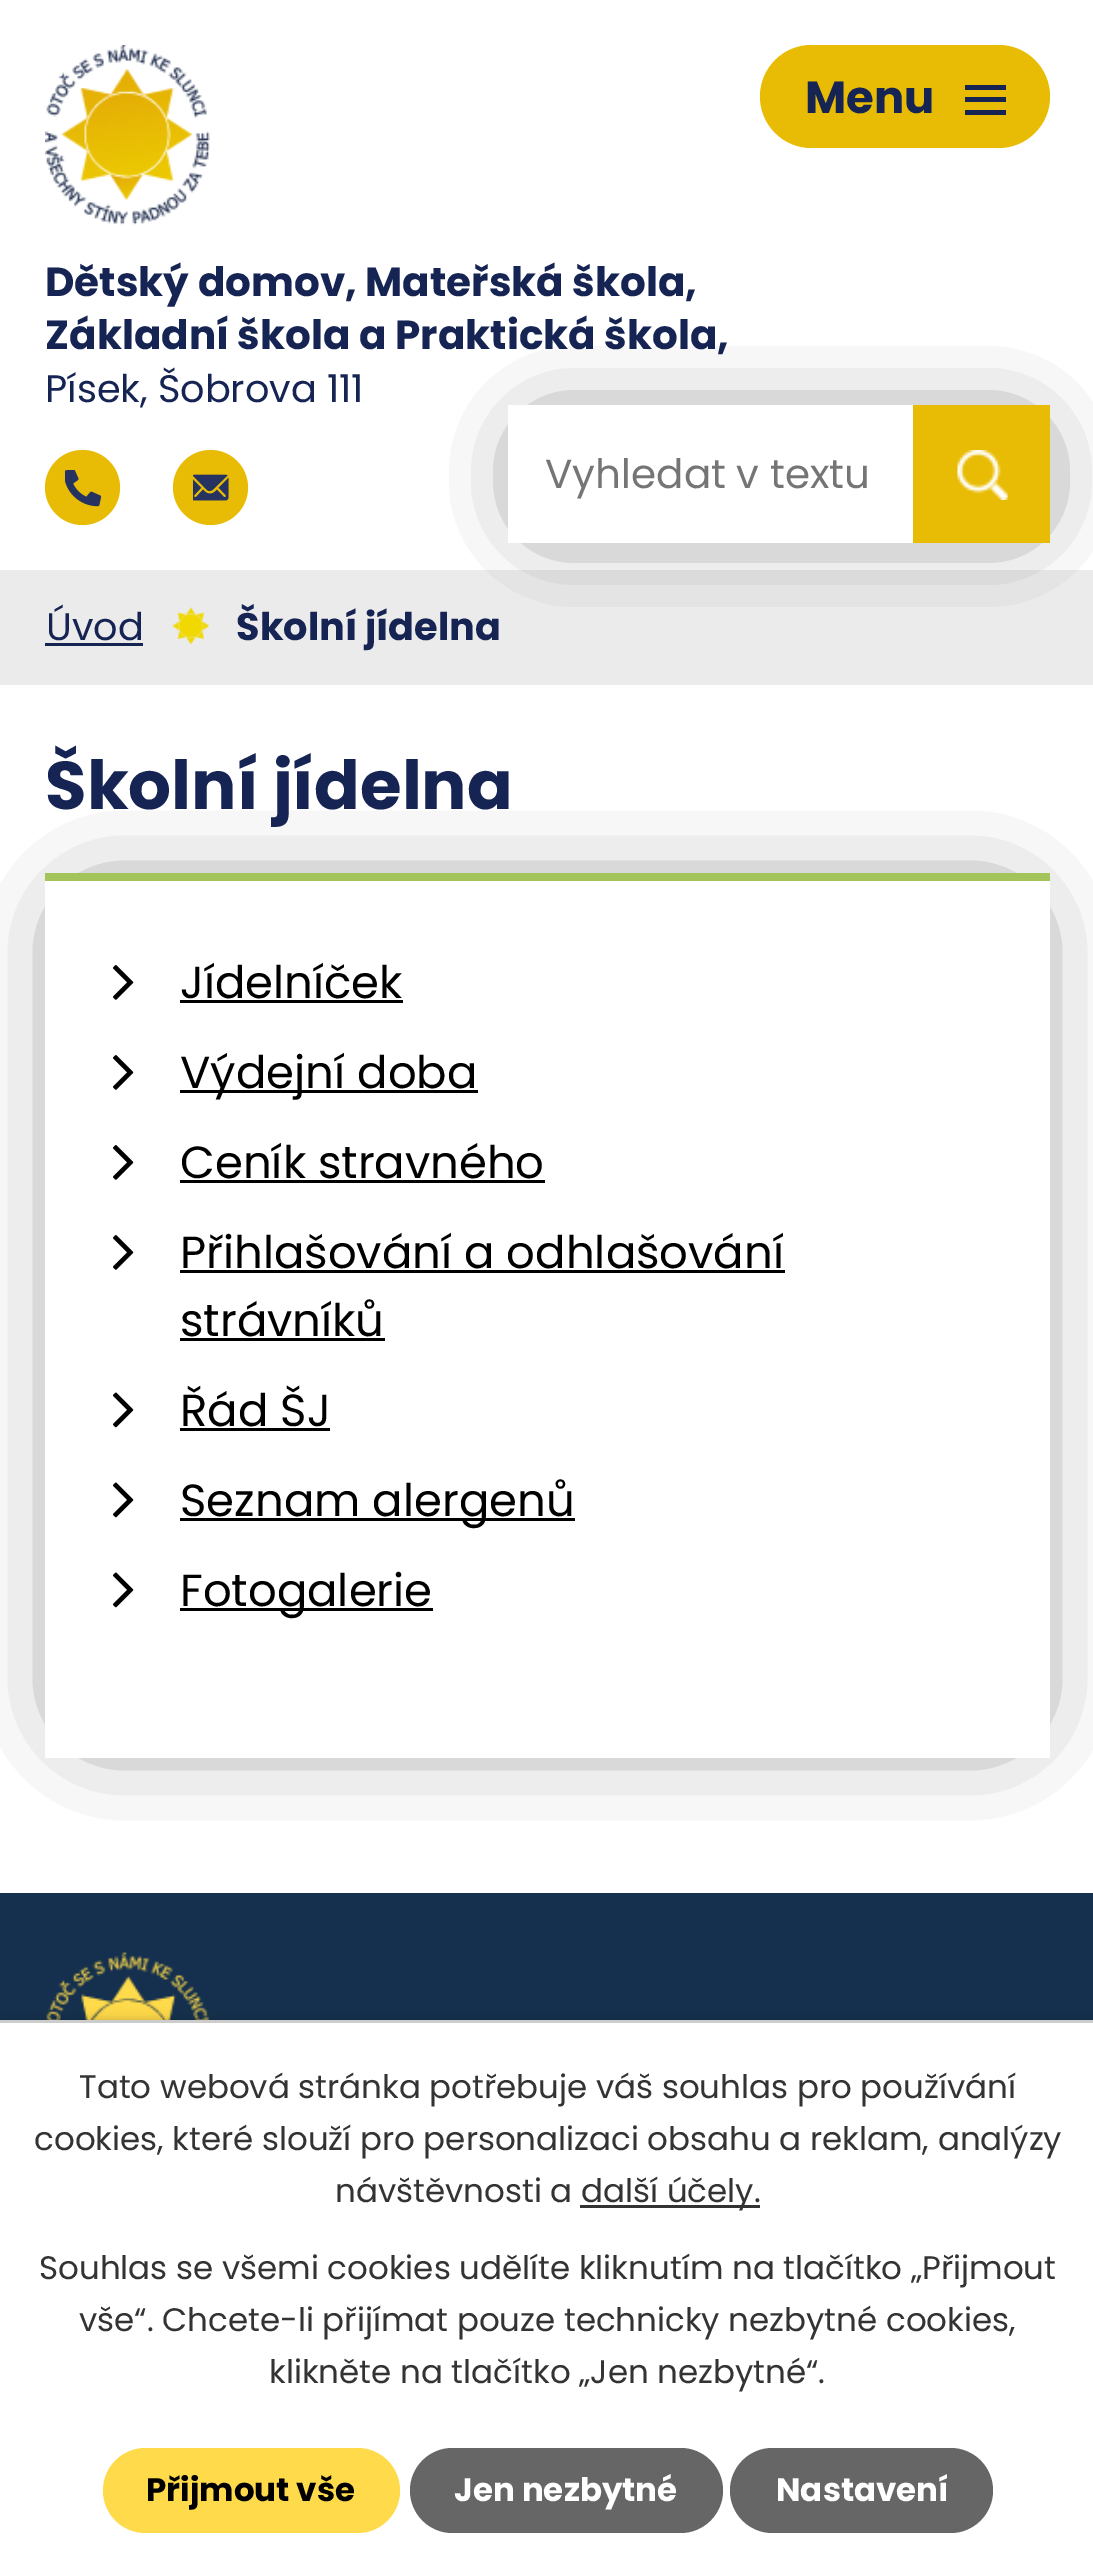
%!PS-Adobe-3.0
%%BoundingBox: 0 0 1093 2568
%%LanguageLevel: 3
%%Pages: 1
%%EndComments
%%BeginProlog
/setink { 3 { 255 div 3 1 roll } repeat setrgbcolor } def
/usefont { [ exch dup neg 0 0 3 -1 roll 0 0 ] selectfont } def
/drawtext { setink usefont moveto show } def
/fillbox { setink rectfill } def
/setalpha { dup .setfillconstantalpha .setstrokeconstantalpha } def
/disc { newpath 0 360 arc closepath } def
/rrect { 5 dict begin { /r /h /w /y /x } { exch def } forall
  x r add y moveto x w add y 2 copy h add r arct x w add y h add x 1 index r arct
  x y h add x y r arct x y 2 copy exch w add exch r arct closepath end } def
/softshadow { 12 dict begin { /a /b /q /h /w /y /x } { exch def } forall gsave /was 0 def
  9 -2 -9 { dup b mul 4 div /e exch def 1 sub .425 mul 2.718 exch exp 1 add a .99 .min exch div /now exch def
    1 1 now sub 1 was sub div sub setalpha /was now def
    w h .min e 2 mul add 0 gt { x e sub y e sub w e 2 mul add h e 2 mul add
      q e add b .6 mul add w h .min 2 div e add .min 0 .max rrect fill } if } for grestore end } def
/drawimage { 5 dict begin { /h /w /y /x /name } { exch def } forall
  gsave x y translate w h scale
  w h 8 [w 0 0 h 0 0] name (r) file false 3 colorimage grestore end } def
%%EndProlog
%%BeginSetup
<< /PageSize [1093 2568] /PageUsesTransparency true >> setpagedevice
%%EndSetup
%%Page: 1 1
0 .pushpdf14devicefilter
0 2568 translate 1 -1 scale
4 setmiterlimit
0 0 1093 2568 255 255 255 fillbox
232 188 4 setink
760 45 290 103 51.5 rrect fill
(Menu) 805 113 /Poppins-Bold 45 22 36 84 drawtext
965 115 moveto 965 110 lineto 1006 110 lineto 1006 115 lineto closepath 965 85 moveto 1006 85 lineto 1006 90 lineto 965 90 lineto closepath 965 102 moveto 965 97 lineto 1006 97 lineto 1006 102 lineto closepath fill
(assets/img1.rgb) 45 45 165 180 drawimage
(Dětský domov, Mateřská škola,) 45 296 /Poppins-Bold 40.5 22 36 84 drawtext
(Základní škola a Praktická škola,) 45 349 /Poppins-Bold 40.5 22 36 84 drawtext
(Písek, Šobrova 111) 45 402 /Poppins-Regular 38.25 22 36 84 drawtext
232 188 4 setink
82.5 487.5 37.5 disc fill
(assets/img2.rgb) 65 470 37 37 drawimage
210.5 487.5 37.5 disc fill
(assets/img3.rgb) 193 474 36 27 drawimage
0 570 1093 115 235 235 235 fillbox
0 0 0 setink
548 445 467 63 0 44 1 softshadow
508 405 405 138 255 255 255 fillbox
(Vyhledat v textu) 545 488 /Poppins-Regular 40.5 117 117 117 drawtext
913 405 137 138 232 188 4 fillbox
(assets/img4.rgb) 957 450 51 50 drawimage
(Úvod) 46 640 /Poppins-Regular 38.25 22 36 84 drawtext
45 643 98 3 22 36 84 fillbox
(assets/img5.rgb) 172 607 37 37 drawimage
(Školní jídelna) 236 640 /Poppins-Bold 38.25 22 36 84 drawtext
0 0 0 setink
95 923 905 785 0 50 1 softshadow
(Školní jídelna) 45 809 /Poppins-Bold 67.5 22 36 84 drawtext
45 881 1005 877 255 255 255 fillbox
45 873 1005 8 163 196 90 fillbox
(assets/img6.rgb) 113 965 21 35 drawimage
(Jídelníček) 180 998 /Poppins-Regular 45 0 0 0 drawtext
180 1000 223 3 0 0 0 fillbox
(assets/img6.rgb) 113 1055 21 35 drawimage
180 1090 298 3 0 0 0 fillbox
(Výdejní doba) 180 1088 /Poppins-Regular 45 0 0 0 drawtext
(assets/img6.rgb) 113 1145 21 35 drawimage
(Ceník stravného) 180 1178 /Poppins-Regular 45 0 0 0 drawtext
180 1180 365 3 0 0 0 fillbox
(assets/img6.rgb) 113 1235 21 35 drawimage
(Přihlašování a odhlašování) 180 1268 /Poppins-Regular 45 0 0 0 drawtext
180 1270 605 3 0 0 0 fillbox
(strávníků) 180 1336 /Poppins-Regular 45 0 0 0 drawtext
180 1338 205 3 0 0 0 fillbox
(assets/img7.rgb) 113 1392 21 36 drawimage
(Řád ŠJ) 180 1426 /Poppins-Regular 45 0 0 0 drawtext
180 1428 150 3 0 0 0 fillbox
(assets/img7.rgb) 113 1482 21 36 drawimage
180 1518 395 3 0 0 0 fillbox
(Seznam alergenů) 180 1516 /Poppins-Regular 45 0 0 0 drawtext
(assets/img7.rgb) 113 1572 21 36 drawimage
180 1608 253 3 0 0 0 fillbox
(Fotogalerie) 180 1606 /Poppins-Regular 45 0 0 0 drawtext
0 1893 1093 127 21 48 78 fillbox
(assets/img8.rgb) 46 1952 164 68 drawimage
0 0 0 setink
0 2020 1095 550 0 6 0.2 softshadow
0 2023 1093 545 255 255 255 fillbox
0 2020 1093 3 204 204 204 fillbox
(Tato webová stránka potřebuje váš souhlas pro používání) 79 2098 /Poppins-Regular 32.5 51 51 51 drawtext
(cookies, které slouží pro personalizaci obsahu a reklam, analýzy) 34 2150 /Poppins-Regular 32.5 51 51 51 drawtext
(návštěvnosti a) 335 2202 /Poppins-Regular 32.5 51 51 51 drawtext
580 2205 180 3 51 51 51 fillbox
(další účely.) 581 2202 /Poppins-Regular 32.5 51 51 51 drawtext
(Souhlas se všemi cookies udělíte kliknutím na tlačítko „Přijmout) 39 2279 /Poppins-Regular 32.5 51 51 51 drawtext
(vše“. Chcete-li přijímat pouze technicky nezbytné cookies,) 79 2331 /Poppins-Regular 32.5 51 51 51 drawtext
(klikněte na tlačítko „Jen nezbytné“.) 269 2383 /Poppins-Regular 32.5 51 51 51 drawtext
255 218 74 setink
103 2448 297 85 42.5 rrect fill
(Přijmout vše) 146 2501 /Poppins-Bold 32.5 0 0 0 drawtext
102 102 102 setink
410 2448 313 85 42.5 rrect fill
(Jen nezbytné) 454 2501 /Poppins-Bold 32.5 255 255 255 drawtext
102 102 102 setink
730 2448 263 85 42.5 rrect fill
(Nastavení) 776 2501 /Poppins-Bold 32.5 255 255 255 drawtext
.poppdf14devicefilter showpage
%%EOF
